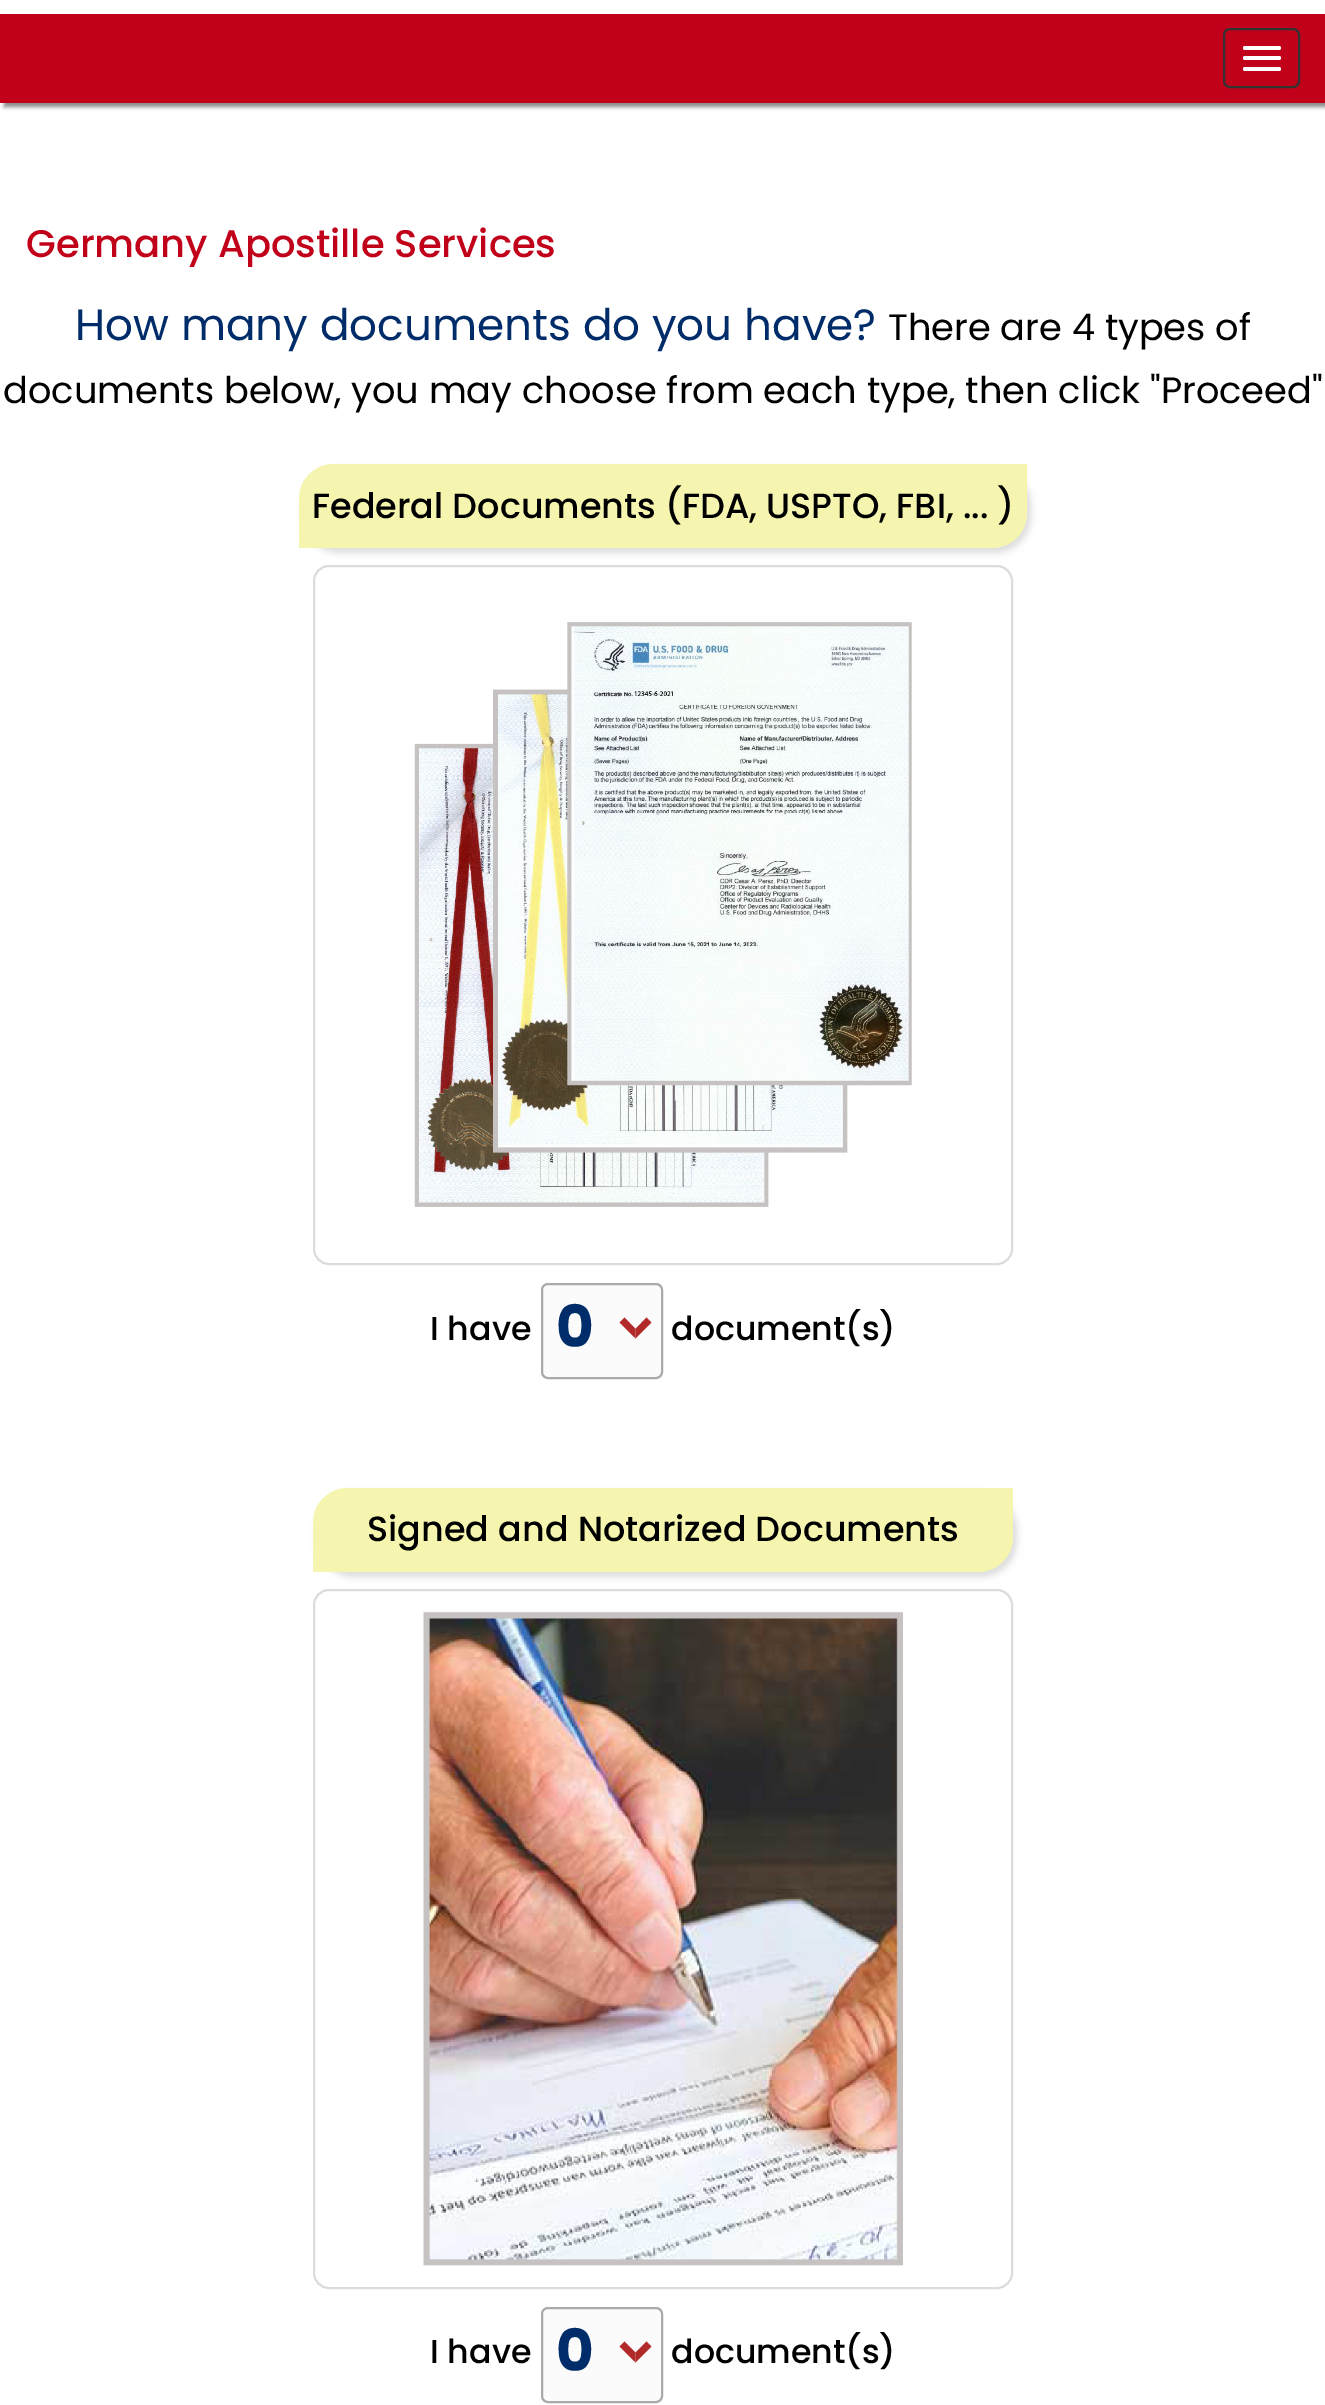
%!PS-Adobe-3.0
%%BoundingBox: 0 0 1325 2405
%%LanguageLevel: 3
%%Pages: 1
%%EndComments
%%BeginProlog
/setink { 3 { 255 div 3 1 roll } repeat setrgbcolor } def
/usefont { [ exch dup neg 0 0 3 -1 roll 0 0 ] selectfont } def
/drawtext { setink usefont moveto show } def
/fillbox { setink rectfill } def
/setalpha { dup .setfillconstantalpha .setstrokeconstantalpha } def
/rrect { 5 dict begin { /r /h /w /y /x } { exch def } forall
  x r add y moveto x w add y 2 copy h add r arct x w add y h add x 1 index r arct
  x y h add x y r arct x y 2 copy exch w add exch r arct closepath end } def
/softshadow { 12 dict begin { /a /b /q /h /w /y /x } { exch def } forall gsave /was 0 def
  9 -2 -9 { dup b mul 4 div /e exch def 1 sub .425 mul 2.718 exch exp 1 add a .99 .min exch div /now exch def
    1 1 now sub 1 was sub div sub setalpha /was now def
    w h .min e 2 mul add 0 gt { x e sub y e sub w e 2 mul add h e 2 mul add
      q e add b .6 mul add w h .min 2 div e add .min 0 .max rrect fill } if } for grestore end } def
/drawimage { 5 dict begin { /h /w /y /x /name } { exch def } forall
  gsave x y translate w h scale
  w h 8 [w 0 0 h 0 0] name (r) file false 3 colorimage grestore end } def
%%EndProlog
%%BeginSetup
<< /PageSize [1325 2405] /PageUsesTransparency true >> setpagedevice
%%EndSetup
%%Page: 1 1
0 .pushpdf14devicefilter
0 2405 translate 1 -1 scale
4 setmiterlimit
0 0 1325 2405 255 255 255 fillbox
137 134 134 setink
4 18 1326 89 0 2 1 softshadow
0 14 1325 89 193 0 25 fillbox
51 51 51 setink
2 setlinewidth
1224 29 75 58 6 rrect stroke
255 255 255 setink
1243 46 38 4 2 rrect fill
1243 56 38 4 2 rrect fill
1243 67 38 4 2 rrect fill
(Germany Apostille Services) 26 257 /Poppins-Medium 38.5 193 0 25 drawtext
(How many documents do you have?) 75 340 /Poppins-Regular 43.75 0 44 105 drawtext
(There are 4 types of) 888 340 /Poppins-Regular 36.75 0 0 0 drawtext
(documents below, you may choose from each type, then click "Proceed") 3 403 /Poppins-Regular 36.75 0 0 0 drawtext
220 220 220 setink
303 469 728 84 35 3.5 1 softshadow
245 245 175 setink
334 464 moveto 1027 464 lineto 1027 513 lineto 1027 532.5 1011.5 548 992 548 curveto 299 548 lineto 299 499 lineto 299 479.5 314.5 464 334 464 curveto closepath fill
(Federal Documents \(FDA, USPTO, FBI, ... \)) 312 518 /Poppins-Medium 35 0 0 0 drawtext
220 220 220 setink
314 566 698 698 15 rrect stroke
(assets/img1.rgb) 414 622 498 585 drawimage
(I have) 430 1340 /Poppins-Medium 33.25 0 0 0 drawtext
251 251 251 setink
542 1284 120 94 6 rrect gsave fill grestore
170 170 170 setink
stroke
(0) 556 1347 /Poppins-Bold 58 0 44 105 drawtext
177 41 41 setink
651.5 1322.5 moveto 635.5 1338.5 lineto 635.5 1329 lineto 646.5 1317.5 lineto closepath fill
178 41 41 setink
635.5 1338.5 moveto 619.5 1322.5 lineto 624.5 1317.5 lineto 635.5 1329 lineto closepath fill
(document\(s\)) 671 1340 /Poppins-Medium 33.25 0 0 0 drawtext
220 220 220 setink
317 1493 700 84 35 3.5 1 softshadow
245 245 175 setink
348 1488 moveto 1013 1488 lineto 1013 1537 lineto 1013 1556.5 997.5 1572 978 1572 curveto 313 1572 lineto 313 1523 lineto 313 1503.5 328.5 1488 348 1488 curveto closepath fill
(Signed and Notarized Documents) 367 1541 /Poppins-Medium 35 0 0 0 drawtext
220 220 220 setink
314 1590 698 698 15 rrect stroke
(assets/img2.rgb) 423 1611 480 655 drawimage
(I have) 430 2363 /Poppins-Medium 33.25 0 0 0 drawtext
251 251 251 setink
542 2308 120 94 6 rrect gsave fill grestore
170 170 170 setink
stroke
(0) 556 2371 /Poppins-Bold 58 0 44 105 drawtext
177 41 41 setink
651.5 2346.5 moveto 635.5 2362.5 lineto 635.5 2352.5 lineto 646.5 2341.5 lineto closepath fill
178 41 41 setink
635.5 2362.5 moveto 619.5 2346.5 lineto 624.5 2341.5 lineto 635.5 2352.5 lineto closepath fill
(document\(s\)) 671 2363 /Poppins-Medium 33.25 0 0 0 drawtext
.poppdf14devicefilter showpage
%%EOF
